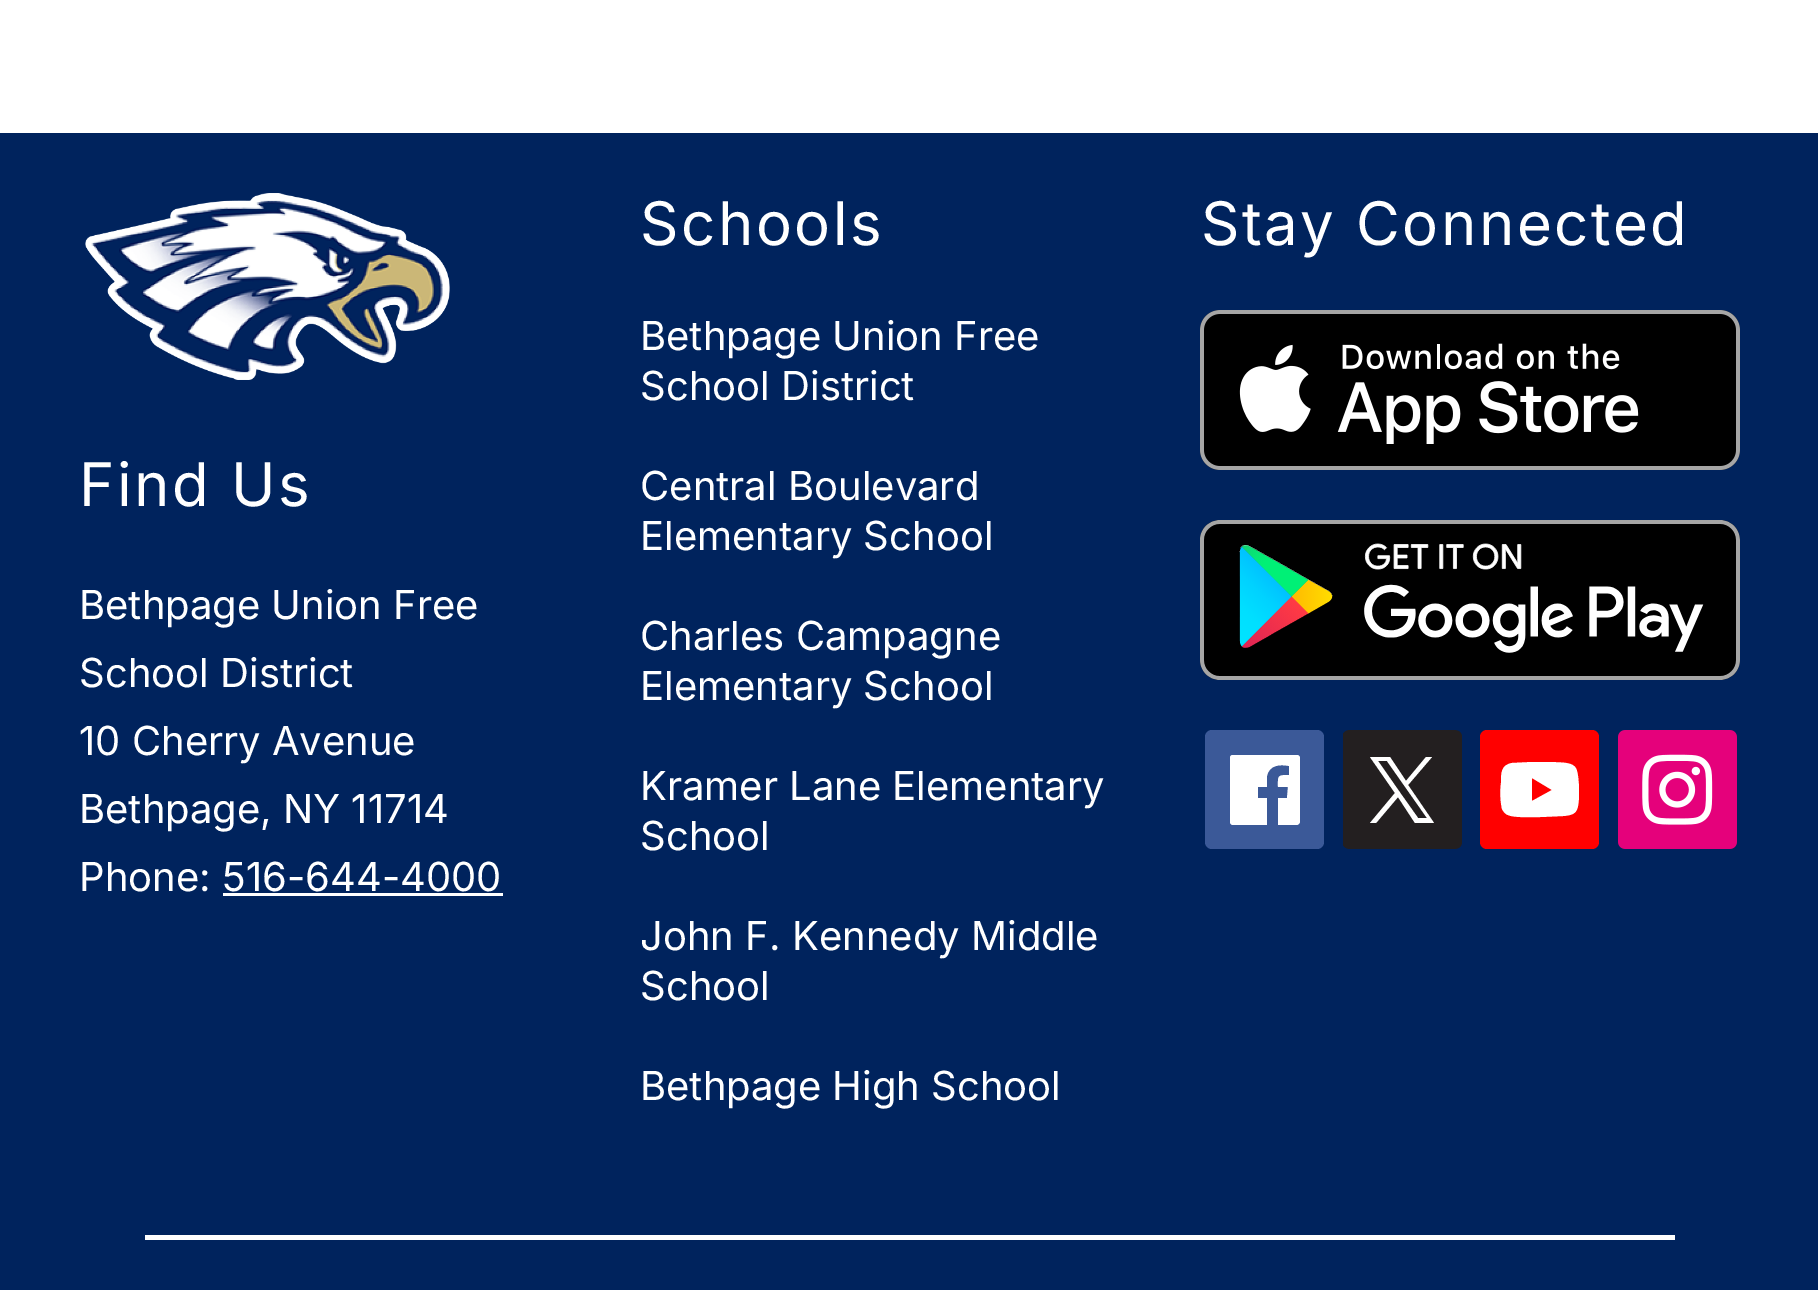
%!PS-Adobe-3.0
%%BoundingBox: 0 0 1818 1290
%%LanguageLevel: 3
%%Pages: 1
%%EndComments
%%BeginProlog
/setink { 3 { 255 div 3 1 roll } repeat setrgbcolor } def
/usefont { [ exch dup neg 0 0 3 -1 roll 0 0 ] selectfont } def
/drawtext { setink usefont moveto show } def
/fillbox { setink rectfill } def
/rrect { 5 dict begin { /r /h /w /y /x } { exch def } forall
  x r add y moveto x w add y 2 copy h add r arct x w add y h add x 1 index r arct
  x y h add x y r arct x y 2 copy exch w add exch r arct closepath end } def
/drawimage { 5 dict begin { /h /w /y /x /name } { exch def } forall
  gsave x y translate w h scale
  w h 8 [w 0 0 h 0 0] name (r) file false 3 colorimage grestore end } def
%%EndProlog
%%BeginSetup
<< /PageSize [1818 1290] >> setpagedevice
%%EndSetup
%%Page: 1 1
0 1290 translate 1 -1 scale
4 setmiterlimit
0 0 1818 1290 255 255 255 fillbox
0 133 1818 1157 0 35 93 fillbox
/Inter-Regular 60 usefont
255 255 255 setink
640 245 moveto 2.5 0 (Schools) ashow
(Bethpage Union Free) 640 350 /Inter-Regular 40 255 255 255 drawtext
(School District) 640 400 /Inter-Regular 40 255 255 255 drawtext
(Central Boulevard) 640 500 /Inter-Regular 40 255 255 255 drawtext
(Elementary School) 640 550 /Inter-Regular 40 255 255 255 drawtext
(Charles Campagne) 640 650 /Inter-Regular 40 255 255 255 drawtext
(Elementary School) 640 700 /Inter-Regular 40 255 255 255 drawtext
(Kramer Lane Elementary) 640 800 /Inter-Regular 40 255 255 255 drawtext
(School) 640 850 /Inter-Regular 40 255 255 255 drawtext
(John F. Kennedy Middle) 640 950 /Inter-Regular 40 255 255 255 drawtext
(School) 640 1000 /Inter-Regular 40 255 255 255 drawtext
(Bethpage High School) 640 1100 /Inter-Regular 40 255 255 255 drawtext
/Inter-Regular 60 usefont
1201 245 moveto 2.5 0 (Stay Connected) ashow
(assets/img1.rgb) 1200 310 540 160 drawimage
(assets/img2.rgb) 1200 520 540 160 drawimage
59 89 152 setink
1205 730 119 119 7 rrect fill
255 255 255 setink
1297 755 moveto 1233 755 lineto 1231 755 1230 756 1230 758 curveto 1230 822 lineto 1230 823 1231 825 1233 825 curveto 1297 825 lineto 1298 825 1300 823 1300 822 curveto 1300 758 lineto 1300 756 1298 755 1297 755 curveto closepath 1289 775 moveto 1277 775 1278 776 1278 787 curveto 1288 787 lineto 1287 798 lineto 1278 798 lineto 1278 825 lineto 1267 825 lineto 1267 798 lineto 1258 798 lineto 1258 787 lineto 1267 787 lineto 1267 776 lineto 1269 765 1280 764 1289 766 curveto closepath fill
gsave
1343 730 120 120 rectclip
35 31 32 setink
1350 730 moveto 1454 730 lineto 1459 730 1462 733 1462 737 curveto 1462 842 lineto 1462 846 1459 849 1454 849 curveto 1350 849 lineto 1346 849 1342 846 1342 842 curveto 1342 737 lineto 1342 733 1346 730 1350 730 curveto closepath fill
grestore
1408 785 moveto 1432 757 lineto 1426 757 lineto 1406 781 lineto 1390 757 lineto 1370 757 lineto 1395 793 lineto 1370 823 lineto 1376 823 lineto 1398 797 lineto 1415 823 lineto 1434 823 lineto closepath 1401 794 moveto 1378 761 lineto 1387 761 lineto 1427 818 lineto 1418 818 lineto closepath fill
255 0 0 setink
1480 730 119 119 7 rrect fill
255 255 255 setink
1577 771 moveto 1575 761 1560 763 1553 762 curveto 1532 762 lineto 1512 763 lineto 1501 765 1501 773 1501 783 curveto 1500 791 1500 800 1502 809 curveto 1503 811 1505 814 1508 815 curveto 1514 818 1533 817 1541 817 curveto 1563 816 lineto 1577 815 1578 811 1579 797 curveto 1579 788 1579 779 1577 771 curveto closepath 1532 801 moveto 1532 778 lineto 1552 790 lineto closepath fill
(assets/img3.rgb) 1618 730 119 119 drawimage
(assets/img4.rgb) 85 193 365 187 drawimage
79 506 moveto 2.5 0 (Find Us) ashow
(Bethpage Union Free) 79 619 /Inter-Regular 40 255 255 255 drawtext
(School District) 79 687 /Inter-Regular 40 255 255 255 drawtext
(10 Cherry Avenue) 79 755 /Inter-Regular 40 255 255 255 drawtext
(Bethpage, NY 11714) 79 823 /Inter-Regular 40 255 255 255 drawtext
(Phone: 516-644-4000) 79 891 /Inter-Regular 40 255 255 255 drawtext
223 893 280 3 255 255 255 fillbox
145 1235 1530 5 255 255 255 fillbox
showpage
%%EOF
